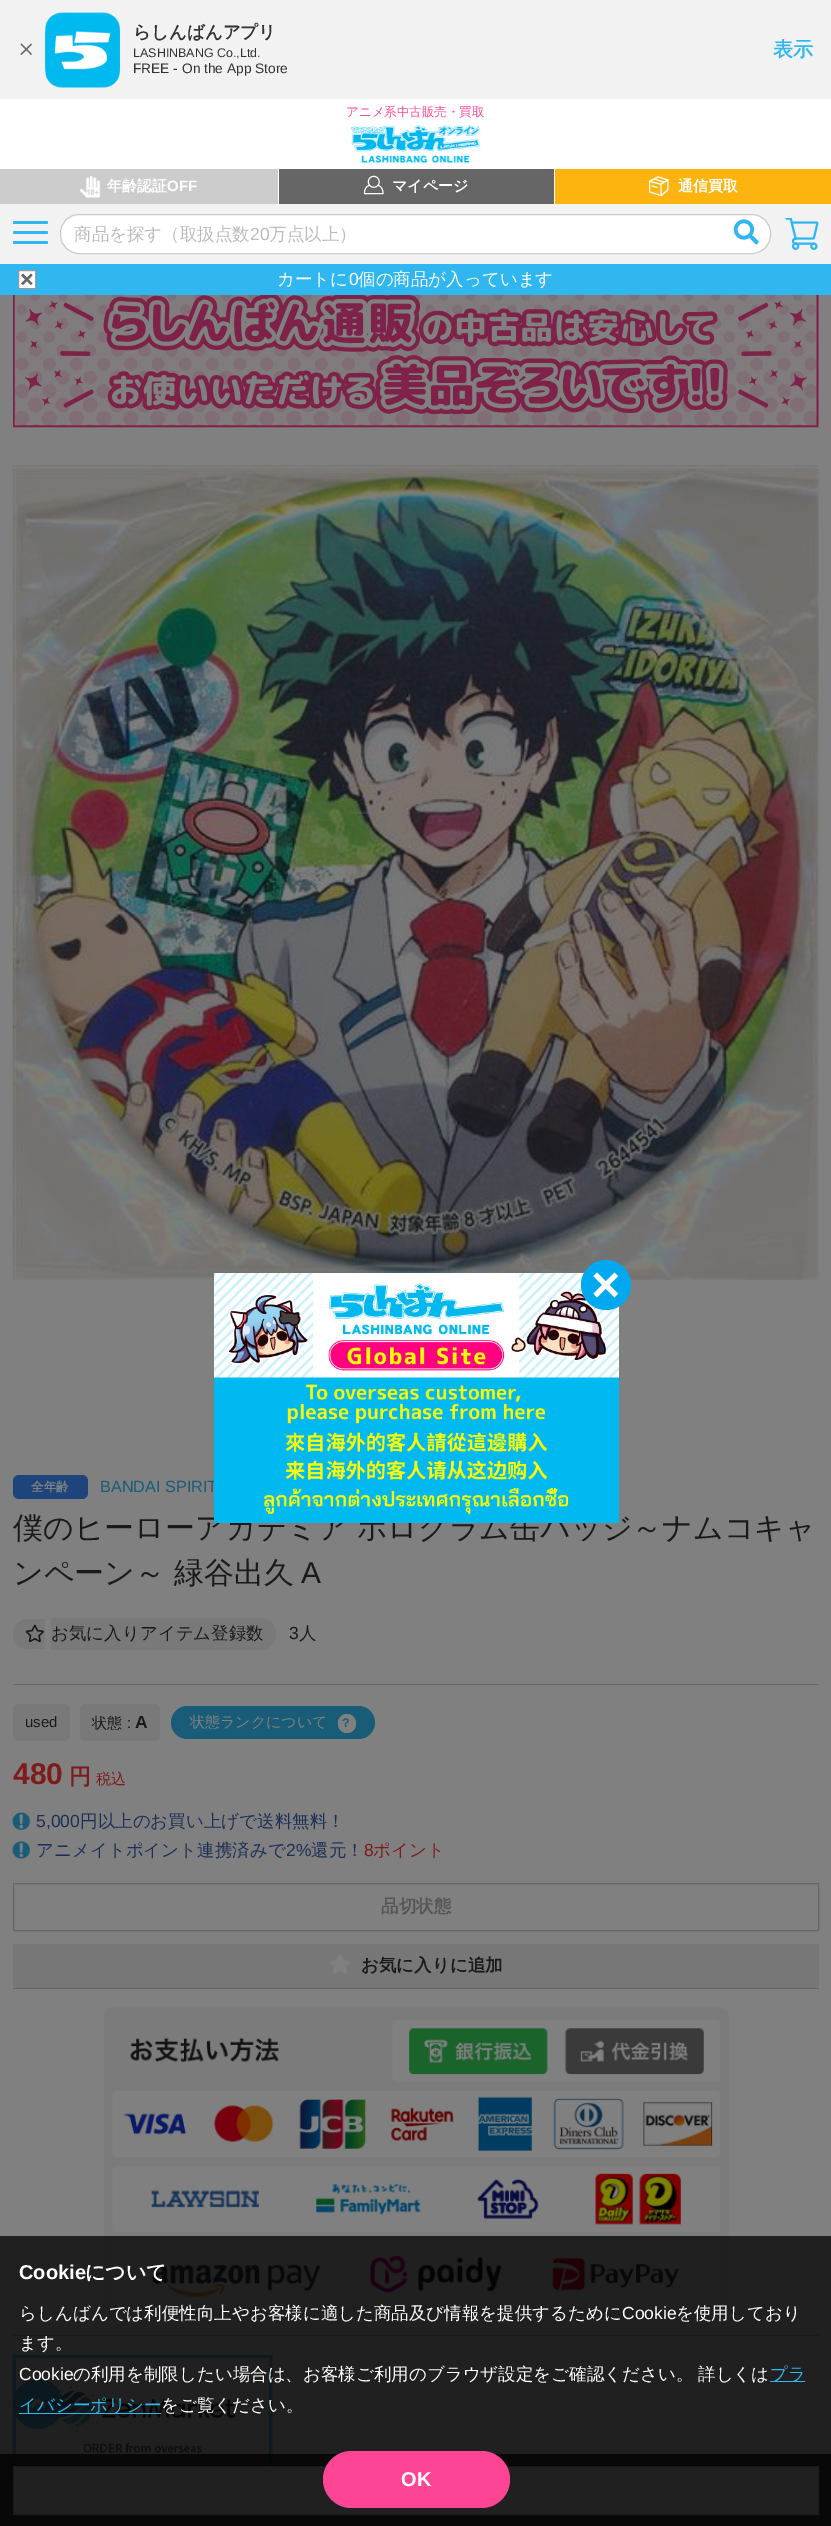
%!PS-Adobe-3.0
%%BoundingBox: 0 0 831 2526
%%LanguageLevel: 3
%%Pages: 1
%%EndComments
%%BeginProlog
/setink { 3 { 255 div 3 1 roll } repeat setrgbcolor } def
/usefont { [ exch dup neg 0 0 3 -1 roll 0 0 ] selectfont } def
/drawtext { setink usefont moveto show } def
/fillbox { setink rectfill } def
/setalpha { dup .setfillconstantalpha .setstrokeconstantalpha } def
/disc { newpath 0 360 arc closepath } def
/rrect { 5 dict begin { /r /h /w /y /x } { exch def } forall
  x r add y moveto x w add y 2 copy h add r arct x w add y h add x 1 index r arct
  x y h add x y r arct x y 2 copy exch w add exch r arct closepath end } def
/drawimage { 5 dict begin { /h /w /y /x /name } { exch def } forall
  gsave x y translate w h scale
  w h 8 [w 0 0 h 0 0] name (r) file false 3 colorimage grestore end } def
%%EndProlog
%%BeginSetup
<< /PageSize [831 2526] /PageUsesTransparency true >> setpagedevice
%%EndSetup
%%Page: 1 1
0 .pushpdf14devicefilter
0 2526 translate 1 -1 scale
4 setmiterlimit
0 0 831 2526 128 128 128 fillbox
0 0 831 99 242 242 242 fillbox
102 102 102 setink
21.5 43.5 moveto 32 54 lineto 31 55 lineto 20.5 44.5 lineto closepath fill
20.5 54 moveto 31 43.5 lineto 32 44.5 lineto 21.5 55 lineto closepath fill
(assets/img1.rgb) 45 12 75 76 drawimage
(らしんばんアプリ) 133 38 /WenQuanYiZenHei-Bold 17.5 51 51 51 drawtext
(LASHINBANG Co.,Ltd.) 133 57 /LiberationSans-Regular 12.5 51 51 51 drawtext
(FREE - On the App Store) 133 73 /LiberationSans-Regular 13.75 51 51 51 drawtext
(表示) 773 56 /WenQuanYiZenHei-Bold 20 48 183 239 drawtext
0 99 831 105 255 255 255 fillbox
(アニメ系中古販売・買取) 346 116 /WenQuanYiZenHei-Medium 12.5 253 68 149 drawtext
(assets/img2.rgb) 351 125 129 38 drawimage
0 204 831 60 242 242 242 fillbox
48 183 239 setink
13 221 35 3 1.5 rrect fill
13 231 35 3 1.5 rrect fill
13 241 35 3 1.5 rrect fill
(assets/img3.rgb) 785 218 34 32 drawimage
0 169 278 35 204 204 204 fillbox
(assets/img4.rgb) 80 176 21 22 drawimage
(年齢認証) 107 191 /WenQuanYiZenHei-Bold 15 255 255 255 drawtext
(OFF) 167 191 /LiberationSans-Bold 15 255 255 255 drawtext
279 169 275 35 102 102 102 fillbox
(assets/img5.rgb) 364 175 20 20 drawimage
(マイページ) 392 191 /WenQuanYiZenHei-Bold 15 255 255 255 drawtext
555 169 276 35 253 180 15 fillbox
(assets/img6.rgb) 649 176 20 20 drawimage
(通信買取) 678 191 /WenQuanYiZenHei-Bold 15 255 255 255 drawtext
60.5 214.5 710 39 18.5 rrect gsave fill grestore
204 204 204 setink
stroke
(商品を探す（取扱点数) 74 240 /WenQuanYiZenHei-Medium 17.5 187 187 187 drawtext
(20) 250 240 /LiberationSans-Regular 17.5 187 187 187 drawtext
(万点以上）) 269 240 /WenQuanYiZenHei-Medium 17.5 187 187 187 drawtext
(assets/img7.rgb) 733 219 26 26 drawimage
0 264 831 31 48 183 239 fillbox
255 255 255 setink
18.5 270.5 moveto 35.5 270.5 lineto 35.5 288.5 lineto 18.5 288.5 lineto closepath gsave fill grestore
153 153 153 setink
stroke
102 102 102 setink
23 273.5 moveto 32.5 283.5 lineto 31 285 lineto 21 275.5 lineto closepath fill
21 283.5 moveto 31 273.5 lineto 32.5 275.5 lineto 23 285 lineto closepath fill
(カートに) 277 285 /WenQuanYiZenHei-Medium 17.5 255 255 255 drawtext
(0) 349 285 /LiberationSans-Regular 17.5 255 255 255 drawtext
(個の商品が入っています) 358 285 /WenQuanYiZenHei-Medium 17.5 255 255 255 drawtext
(assets/img8.rgb) 13 295 806 133 drawimage
(assets/img9.rgb) 12 465 807 815 drawimage
29 68 123 setink
13 1475 75 24 6 rrect fill
(全年齢) 31 1491 /WenQuanYiZenHei-Bold 12.5 128 128 128 drawtext
(BANDAI SPIRIT) 100 1492 /LiberationSans-Regular 16.25 24 92 120 drawtext
/WenQuanYiZenHei-Medium 30 usefont
26 26 26 setink
13 1538 moveto -1 0 32 (僕のヒーローアカデミア ホログラム缶バッジ～ナムコキャ) widthshow
(ンペーン～ 緑谷出久) 13 1583 /WenQuanYiZenHei-Medium 30 26 26 26 drawtext
(A) 301 1583 /LiberationSans-Regular 30 26 26 26 drawtext
121 121 121 setink
28 1619 moveto 45 1619 lineto 45 1649 lineto 28 1649 lineto 19.5 1649 13 1642.5 13 1634 curveto 13 1625.5 19.5 1619 28 1619 curveto closepath fill
51 1618 moveto 261 1618 lineto 269.5 1618 276 1624.5 276 1633 curveto 276 1635 lineto 276 1643.5 269.5 1650 261 1650 curveto 51 1650 lineto closepath fill
(assets/img10.rgb) 25 1624 19 19 drawimage
(お気に入りアイテム登録数) 51 1639 /WenQuanYiZenHei-Medium 17.5 26 26 26 drawtext
(3) 289 1639 /LiberationSans-Regular 17.5 26 26 26 drawtext
(人) 299 1639 /WenQuanYiZenHei-Medium 17.5 26 26 26 drawtext
13 1684 806 1 102 102 102 fillbox
13 2335 806 1 102 102 102 fillbox
121 121 121 setink
13 1704 57 37 6 rrect fill
(used) 25 1727 /LiberationSans-Regular 15 26 26 26 drawtext
121 121 121 setink
80 1704 80 37 6 rrect fill
(状態) 92 1728 /WenQuanYiZenHei-Medium 15 26 26 26 drawtext
(:) 127 1728 /LiberationSans-Regular 15 26 26 26 drawtext
(A) 135 1728 /LiberationSans-Bold 17.5 26 26 26 drawtext
24 92 120 setink
171 1706 204 33 16.5 rrect fill
(状態ランクについて) 190 1727 /WenQuanYiZenHei-Medium 15 128 128 128 drawtext
338 1714 18 19 9 rrect fill
(?) 342 1727 /LiberationSans-Bold 12.5 24 92 120 drawtext
(480) 13 1784 /LiberationSans-Bold 30 128 27 27 drawtext
(円) 69 1784 /WenQuanYiZenHei-Bold 22 128 27 27 drawtext
(税込) 96 1784 /WenQuanYiZenHei-Medium 15 128 27 27 drawtext
(assets/img11.rgb) 12 1812 18 18 drawimage
(5,000) 36 1827 /LiberationSans-Regular 17.5 28 47 86 drawtext
(円以上のお買い上げで送料無料！) 80 1827 /WenQuanYiZenHei-Medium 17.5 28 47 86 drawtext
(assets/img12.rgb) 12 1841 18 18 drawimage
(アニメイトポイント連携済みで) 36 1856 /WenQuanYiZenHei-Medium 17.5 28 47 86 drawtext
(2%) 286 1856 /LiberationSans-Regular 17.5 28 47 86 drawtext
(還元！) 311 1856 /WenQuanYiZenHei-Medium 17.5 28 47 86 drawtext
(8) 364 1856 /LiberationSans-Regular 17.5 128 27 27 drawtext
(ポイント) 373 1856 /WenQuanYiZenHei-Medium 17.5 128 27 27 drawtext
102 102 102 setink
13.5 1883.5 805 47 rectstroke
(品切状態) 381 1912 /WenQuanYiZenHei-Bold 17.5 85 85 85 drawtext
13 1944 806 44 119 119 119 fillbox
13 1988 806 1 102 102 102 fillbox
(assets/img13.rgb) 329 1954 22 20 drawimage
(お気に入りに追加) 361 1971 /WenQuanYiZenHei-Bold 17.5 26 26 26 drawtext
(assets/img15.rgb) 12 2355 261 127 drawimage
24 92 120 setink
16.5 2512.5 3.5 disc fill
0.75 setalpha
0 2454 831 72 0 0 0 fillbox
1 setalpha
128 128 128 setink
13.5 2466.5 moveto 818.5 2466.5 lineto 818.5 2514.5 lineto 13.5 2514.5 lineto closepath gsave fill grestore
102 102 102 setink
stroke
(assets/img14.rgb) 104 2007 625 309 drawimage
0.8 setalpha
24 92 120 setink
38 2404 25 disc fill
1 setalpha
(assets/img16.rgb) 30 2398 16 11 drawimage
(assets/img17.rgb) 214 1273 405 250 drawimage
0 169 239 setink
606 1285 25 disc fill
255 255 255 setink
597 1272.5 moveto 618 1293.5 lineto 614.5 1297.5 lineto 593.5 1276 lineto closepath fill
593.5 1293.5 moveto 614.5 1272.5 lineto 618 1276 lineto 597 1297.5 lineto closepath fill
0.75 setalpha
0 2236 831 290 0 0 0 fillbox
1 setalpha
(Cookie) 19 2279 /LiberationSans-Bold 20 255 255 255 drawtext
(について) 85 2279 /WenQuanYiZenHei-Bold 20 255 255 255 drawtext
(らしんばんでは利便性向上やお客様に適した商品及び情報を提供するために) 19 2319 /WenQuanYiZenHei-Medium 17.5 255 255 255 drawtext
(Cookie) 622 2319 /LiberationSans-Regular 17.5 255 255 255 drawtext
(を使用しており) 676 2319 /WenQuanYiZenHei-Medium 17.5 255 255 255 drawtext
(ます。) 19 2349 /WenQuanYiZenHei-Medium 17.5 255 255 255 drawtext
(Cookie) 19 2380 /LiberationSans-Regular 17.5 255 255 255 drawtext
(の利用を制限したい場合は、お客様ご利用のブラウザ設定をご確認ください。) 73 2380 /WenQuanYiZenHei-Medium 17.5 255 255 255 drawtext
(詳しくは) 698 2380 /WenQuanYiZenHei-Medium 17.5 255 255 255 drawtext
770 2381 35 1 48 183 239 fillbox
(プラ) 770 2380 /WenQuanYiZenHei-Medium 17.5 48 183 239 drawtext
19 2413 142 1 48 183 239 fillbox
(イバシーポリシー) 19 2411 /WenQuanYiZenHei-Medium 17.5 48 183 239 drawtext
(をご覧ください。) 161 2411 /WenQuanYiZenHei-Medium 17.5 255 255 255 drawtext
253 68 149 setink
323 2451 187 57 28.5 rrect fill
(OK) 401 2486 /LiberationSans-Bold 20 255 255 255 drawtext
.poppdf14devicefilter showpage
%%EOF
